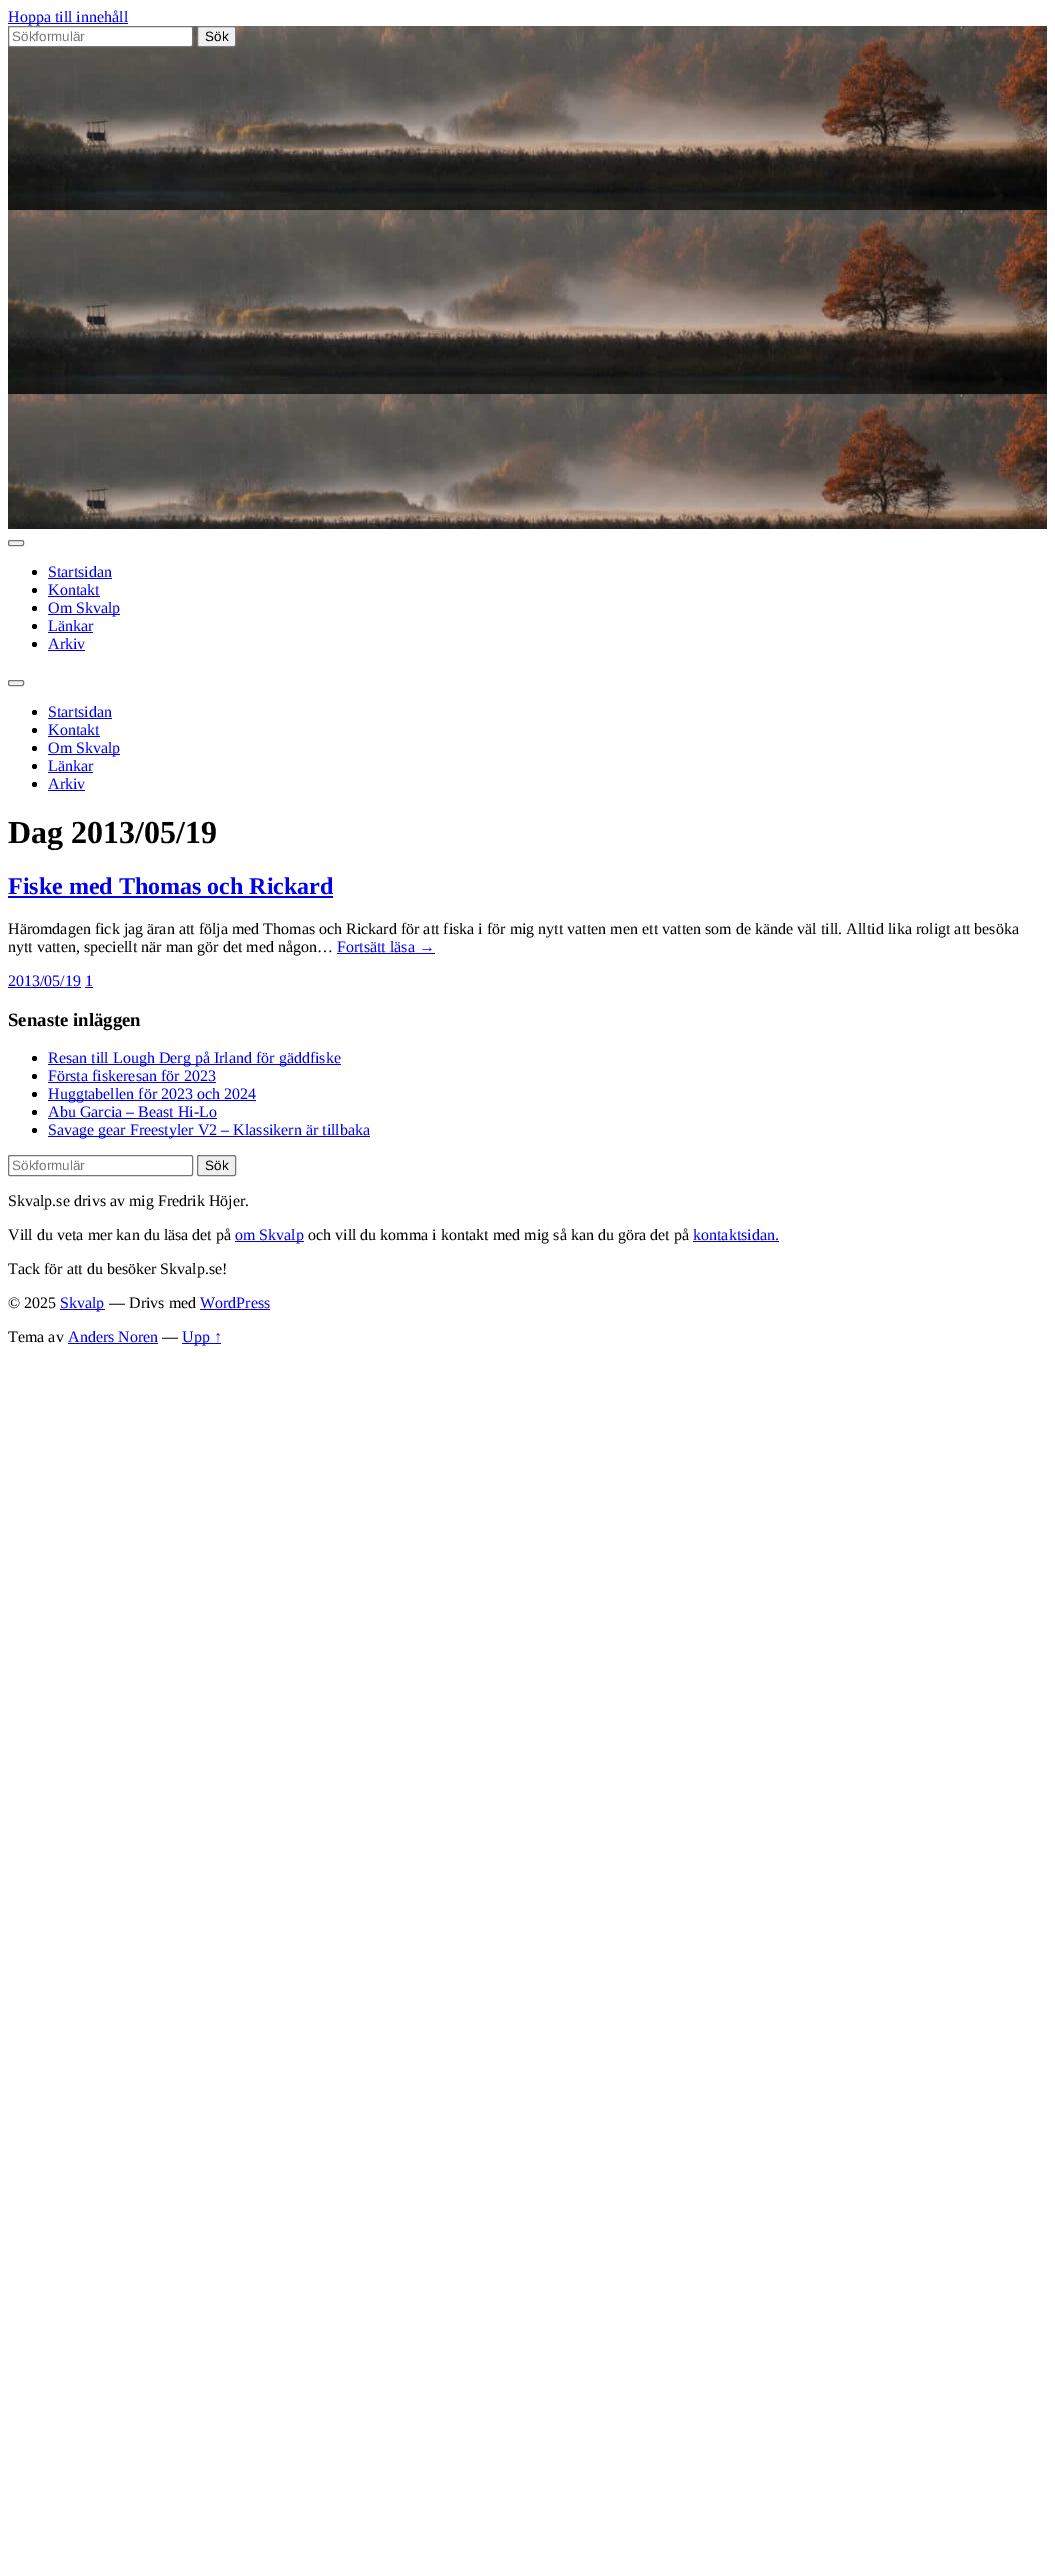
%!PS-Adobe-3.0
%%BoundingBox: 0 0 1055 2575
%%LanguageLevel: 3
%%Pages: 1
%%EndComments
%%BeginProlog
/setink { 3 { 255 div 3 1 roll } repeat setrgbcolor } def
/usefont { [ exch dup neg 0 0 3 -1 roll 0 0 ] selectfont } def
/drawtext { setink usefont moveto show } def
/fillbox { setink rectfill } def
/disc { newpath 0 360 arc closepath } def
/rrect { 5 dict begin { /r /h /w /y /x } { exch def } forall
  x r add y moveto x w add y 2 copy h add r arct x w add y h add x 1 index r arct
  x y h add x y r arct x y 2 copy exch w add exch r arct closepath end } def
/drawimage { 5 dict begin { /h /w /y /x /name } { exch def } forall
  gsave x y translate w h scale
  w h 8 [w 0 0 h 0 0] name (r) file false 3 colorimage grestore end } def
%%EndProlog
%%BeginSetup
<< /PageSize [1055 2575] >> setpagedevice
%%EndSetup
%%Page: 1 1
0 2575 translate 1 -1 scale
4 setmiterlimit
0 0 1055 2575 255 255 255 fillbox
8 23 120 1 0 0 238 fillbox
(Hoppa till innehåll) 8 22 /LiberationSerif-Regular 16 0 0 238 drawtext
(assets/img1.rgb) 8 26 1039 503 drawimage
255 255 255 setink
8.5 26.5 184 20 1.5 rrect gsave fill grestore
118 118 118 setink
stroke
(Sökformulär) 12 41 /LiberationSans-Regular 13.5 117 117 117 drawtext
239 239 239 setink
197.5 26.5 38 20 1.5 rrect gsave fill grestore
118 118 118 setink
stroke
(Sök) 205 41 /LiberationSans-Regular 13.5 0 0 0 drawtext
239 239 239 setink
8.5 540.5 15 5 1.5 rrect gsave fill grestore
118 118 118 setink
stroke
0 0 0 setink
34.5 572.5 2.5 disc fill
(Startsidan) 48 577 /LiberationSerif-Regular 16 0 0 238 drawtext
48 578 64 1 0 0 238 fillbox
0 0 0 setink
34.5 590.5 2.5 disc fill
(Kontakt) 48 595 /LiberationSerif-Regular 16 0 0 238 drawtext
48 596 52 1 0 0 238 fillbox
0 0 0 setink
34.5 608.5 2.5 disc fill
48 614 72 1 0 0 238 fillbox
(Om Skvalp) 48 613 /LiberationSerif-Regular 16 0 0 238 drawtext
0 0 0 setink
34.5 626.5 2.5 disc fill
(Länkar) 48 631 /LiberationSerif-Regular 16 0 0 238 drawtext
48 632 45 1 0 0 238 fillbox
0 0 0 setink
34.5 644.5 2.5 disc fill
(Arkiv) 48 649 /LiberationSerif-Regular 16 0 0 238 drawtext
48 650 37 1 0 0 238 fillbox
239 239 239 setink
8.5 680.5 15 5 1.5 rrect gsave fill grestore
118 118 118 setink
stroke
0 0 0 setink
34.5 712.5 2.5 disc fill
(Startsidan) 48 717 /LiberationSerif-Regular 16 0 0 238 drawtext
48 718 64 1 0 0 238 fillbox
0 0 0 setink
34.5 730.5 2.5 disc fill
(Kontakt) 48 735 /LiberationSerif-Regular 16 0 0 238 drawtext
48 736 52 1 0 0 238 fillbox
0 0 0 setink
34.5 748.5 2.5 disc fill
48 754 72 1 0 0 238 fillbox
(Om Skvalp) 48 753 /LiberationSerif-Regular 16 0 0 238 drawtext
0 0 0 setink
34.5 766.5 2.5 disc fill
(Länkar) 48 771 /LiberationSerif-Regular 16 0 0 238 drawtext
48 772 45 1 0 0 238 fillbox
0 0 0 setink
34.5 784.5 2.5 disc fill
(Arkiv) 48 789 /LiberationSerif-Regular 16 0 0 238 drawtext
48 790 37 1 0 0 238 fillbox
(Dag 2013/05/19) 8 843 /LiberationSerif-Bold 32 0 0 0 drawtext
(Fiske med Thomas och Rickard) 8 894 /LiberationSerif-Bold 24 0 0 238 drawtext
8 896 325 2 0 0 238 fillbox
(Häromdagen fick jag äran att följa med Thomas och Rickard för att fiska i för mig nytt vatten men ett vatten som de kände väl till. Alltid lika roligt att besöka) 8 934 /LiberationSerif-Regular 16 0 0 0 drawtext
(nytt vatten, speciellt när man gör det med någon…) 8 952 /LiberationSerif-Regular 16 0 0 0 drawtext
(Fortsätt läsa →) 337 952 /LiberationSerif-Regular 16 0 0 238 drawtext
337 953 98 1 0 0 238 fillbox
(2013/05/19 1) 8 986 /LiberationSerif-Regular 16 0 0 238 drawtext
8 987 73 1 0 0 238 fillbox
85 987 8 1 0 0 238 fillbox
(Senaste inläggen) 8 1026 /LiberationSerif-Bold 18.75 0 0 0 drawtext
34.5 1058.5 2.5 disc fill
48 1064 293 1 0 0 238 fillbox
(Resan till Lough Derg på Irland för gäddfiske) 48 1063 /LiberationSerif-Regular 16 0 0 238 drawtext
0 0 0 setink
34.5 1076.5 2.5 disc fill
(Första fiskeresan för 2023) 48 1081 /LiberationSerif-Regular 16 0 0 238 drawtext
48 1082 168 1 0 0 238 fillbox
0 0 0 setink
34.5 1094.5 2.5 disc fill
48 1100 208 1 0 0 238 fillbox
(Huggtabellen för 2023 och 2024) 48 1099 /LiberationSerif-Regular 16 0 0 238 drawtext
0 0 0 setink
34.5 1112.5 2.5 disc fill
(Abu Garcia – Beast Hi-Lo) 48 1117 /LiberationSerif-Regular 16 0 0 238 drawtext
48 1118 169 1 0 0 238 fillbox
0 0 0 setink
34.5 1130.5 2.5 disc fill
48 1136 322 1 0 0 238 fillbox
(Savage gear Freestyler V2 – Klassikern är tillbaka) 48 1135 /LiberationSerif-Regular 16 0 0 238 drawtext
118 118 118 setink
8.5 1155.5 184 20 1.5 rrect stroke
(Sökformulär) 12 1170 /LiberationSans-Regular 13.5 117 117 117 drawtext
239 239 239 setink
197.5 1155.5 38 20 1.5 rrect gsave fill grestore
118 118 118 setink
stroke
(Sök) 205 1170 /LiberationSans-Regular 13.5 0 0 0 drawtext
(Skvalp.se drivs av mig Fredrik Höjer.) 8 1206 /LiberationSerif-Regular 16 0 0 0 drawtext
(Vill du veta mer kan du läsa det på) 8 1240 /LiberationSerif-Regular 16 0 0 0 drawtext
235 1241 69 1 0 0 238 fillbox
(om Skvalp) 235 1240 /LiberationSerif-Regular 16 0 0 238 drawtext
(och vill du komma i kontakt med mig så kan du göra det på) 308 1240 /LiberationSerif-Regular 16 0 0 0 drawtext
(kontaktsidan.) 693 1240 /LiberationSerif-Regular 16 0 0 238 drawtext
693 1241 86 1 0 0 238 fillbox
(Tack för att du besöker Skvalp.se!) 8 1274 /LiberationSerif-Regular 16 0 0 0 drawtext
(© 2025) 8 1308 /LiberationSerif-Regular 16 0 0 0 drawtext
60 1309 45 1 0 0 238 fillbox
(Skvalp) 60 1308 /LiberationSerif-Regular 16 0 0 238 drawtext
(— Drivs med) 109 1308 /LiberationSerif-Regular 16 0 0 0 drawtext
(WordPress) 200 1308 /LiberationSerif-Regular 16 0 0 238 drawtext
200 1309 70 1 0 0 238 fillbox
(Tema av) 8 1342 /LiberationSerif-Regular 16 0 0 0 drawtext
(Anders Noren) 68 1342 /LiberationSerif-Regular 16 0 0 238 drawtext
68 1343 90 1 0 0 238 fillbox
(—) 162 1342 /LiberationSerif-Regular 16 0 0 0 drawtext
182 1343 39 1 0 0 238 fillbox
(Upp ↑) 182 1342 /LiberationSerif-Regular 16 0 0 238 drawtext
showpage
%%EOF
